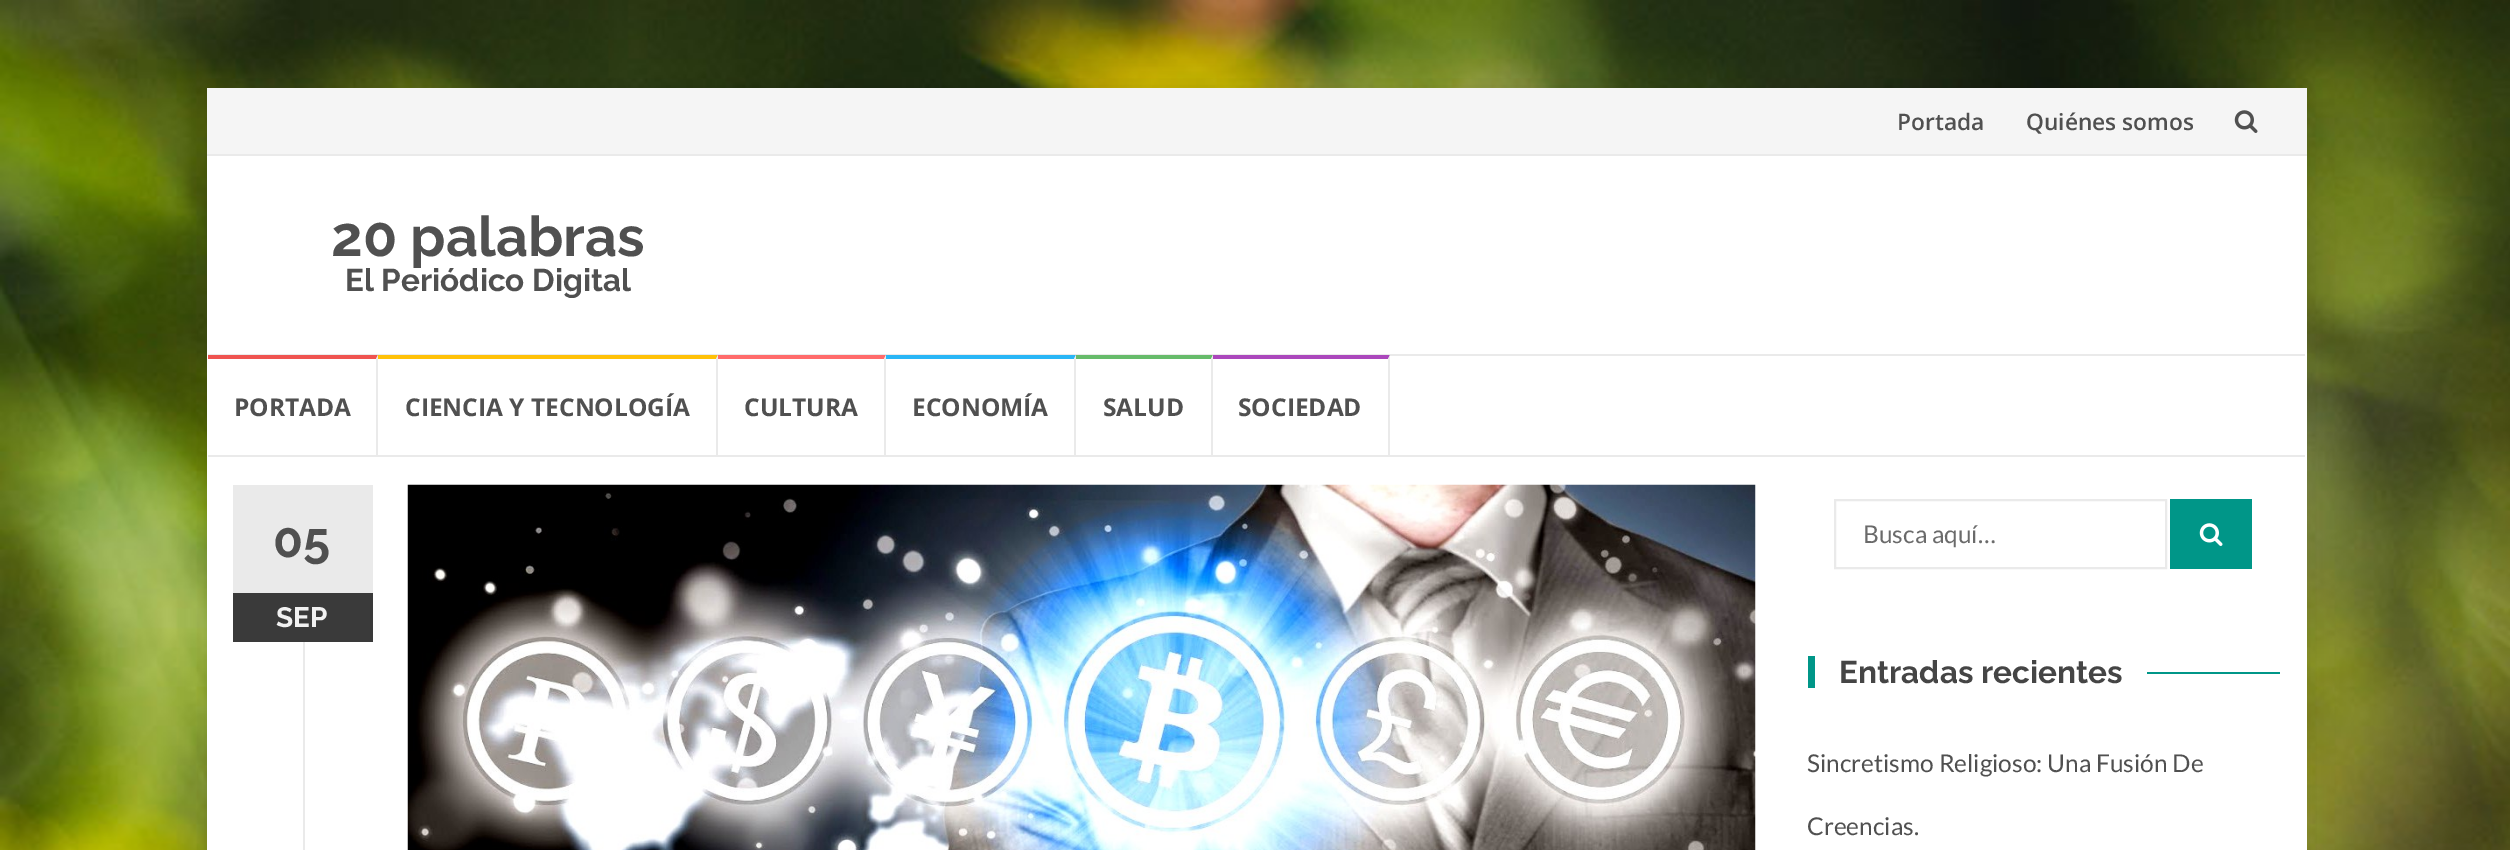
%!PS-Adobe-3.0
%%BoundingBox: 0 0 2510 850
%%LanguageLevel: 3
%%Pages: 1
%%EndComments
%%BeginProlog
/setink { 3 { 255 div 3 1 roll } repeat setrgbcolor } def
/usefont { [ exch dup neg 0 0 3 -1 roll 0 0 ] selectfont } def
/drawtext { setink usefont moveto show } def
/fillbox { setink rectfill } def
/setalpha { dup .setfillconstantalpha .setstrokeconstantalpha } def
/rrect { 5 dict begin { /r /h /w /y /x } { exch def } forall
  x r add y moveto x w add y 2 copy h add r arct x w add y h add x 1 index r arct
  x y h add x y r arct x y 2 copy exch w add exch r arct closepath end } def
/softshadow { 12 dict begin { /a /b /q /h /w /y /x } { exch def } forall gsave /was 0 def
  9 -2 -9 { dup b mul 4 div /e exch def 1 sub .425 mul 2.718 exch exp 1 add a .99 .min exch div /now exch def
    1 1 now sub 1 was sub div sub setalpha /was now def
    w h .min e 2 mul add 0 gt { x e sub y e sub w e 2 mul add h e 2 mul add
      q e add b .6 mul add w h .min 2 div e add .min 0 .max rrect fill } if } for grestore end } def
/drawimage { 5 dict begin { /h /w /y /x /name } { exch def } forall
  gsave x y translate w h scale
  w h 8 [w 0 0 h 0 0] name (r) file false 3 colorimage grestore end } def
%%EndProlog
%%BeginSetup
<< /PageSize [2510 850] /PageUsesTransparency true >> setpagedevice
%%EndSetup
%%Page: 1 1
0 .pushpdf14devicefilter
0 850 translate 1 -1 scale
4 setmiterlimit
0 0 2510 850 255 255 255 fillbox
(assets/img1.rgb) 0 0 2510 850 drawimage
0 0 0 setink
207 88 2100 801 0 13 0.1 softshadow
207 156 2100 694 255 255 255 fillbox
207 88 2100 66 245 245 245 fillbox
207 154 2100 2 234 234 234 fillbox
(Portada) 1897 130 /OpenSans-SemiBold 22.75 80 80 80 drawtext
(Quiénes somos) 2026 130 /OpenSans-SemiBold 22.75 80 80 80 drawtext
(assets/img2.rgb) 2234 110 24 23 drawimage
(20 palabras) 331 256 /Raleway-Bold 56 80 80 80 drawtext
(El Periódico Digital) 345 291 /Raleway-Bold 31.5 80 80 80 drawtext
208 354 2097 2 234 234 234 fillbox
208 455 2097 2 234 234 234 fillbox
239 83 80 setink
208 355 moveto 378 355 lineto 376 359 lineto 208 359 lineto closepath fill
234 234 234 setink
378 355 moveto 378 455 lineto 376 455 lineto 376 359 lineto closepath fill
(PORTADA) 234 416 /OpenSans-Bold 24.5 80 80 80 drawtext
255 193 7 setink
378 355 moveto 718 355 lineto 716 359 lineto 378 359 lineto closepath fill
234 234 234 setink
718 355 moveto 718 455 lineto 716 455 lineto 716 359 lineto closepath fill
(CIENCIA Y TECNOLOGÍA) 405 416 /OpenSans-Bold 24.5 80 80 80 drawtext
255 107 107 setink
718 355 moveto 886 355 lineto 884 359 lineto 718 359 lineto closepath fill
234 234 234 setink
886 355 moveto 886 455 lineto 884 455 lineto 884 359 lineto closepath fill
(CULTURA) 744 416 /OpenSans-Bold 24.5 80 80 80 drawtext
41 182 246 setink
886 355 moveto 1076 355 lineto 1074 359 lineto 886 359 lineto closepath fill
234 234 234 setink
1076 355 moveto 1076 455 lineto 1074 455 lineto 1074 359 lineto closepath fill
(ECONOMÍA) 912 416 /OpenSans-Bold 24.5 80 80 80 drawtext
102 187 106 setink
1076 355 moveto 1213 355 lineto 1211 359 lineto 1076 359 lineto closepath fill
234 234 234 setink
1213 355 moveto 1213 455 lineto 1211 455 lineto 1211 359 lineto closepath fill
(SALUD) 1103 416 /OpenSans-Bold 24.5 80 80 80 drawtext
171 71 188 setink
1213 355 moveto 1390 355 lineto 1388 359 lineto 1213 359 lineto closepath fill
234 234 234 setink
1390 355 moveto 1390 455 lineto 1388 455 lineto 1388 359 lineto closepath fill
(SOCIEDAD) 1238 416 /OpenSans-Bold 24.5 80 80 80 drawtext
233 485 140 108 234 234 234 fillbox
(05) 273 557 /Raleway-Bold 49 80 80 80 drawtext
233 593 140 49 58 58 58 fillbox
(SEP) 276 627 /Raleway-Bold 28 241 241 241 drawtext
(assets/img3.rgb) 407 484 1349 366 drawimage
303 642 2 208 234 234 234 fillbox
2 setlinewidth
1835 500 331 68 rectstroke
(Busca aquí…) 1863 543 /Lato-Regular 24.5 106 106 106 drawtext
2170 499 82 70 0 150 136 fillbox
(assets/img4.rgb) 2199 523 24 23 drawimage
1808 656 7 32 0 150 136 fillbox
(Entradas recientes) 1839 683 /Raleway-Bold 31.5 69 69 69 drawtext
2147 672 133 2 0 150 136 fillbox
(Sincretismo Religioso: Una Fusión De) 1807 772 /Lato-Regular 24.5 80 80 80 drawtext
(Creencias.) 1807 835 /Lato-Regular 24.5 80 80 80 drawtext
.poppdf14devicefilter showpage
%%EOF
